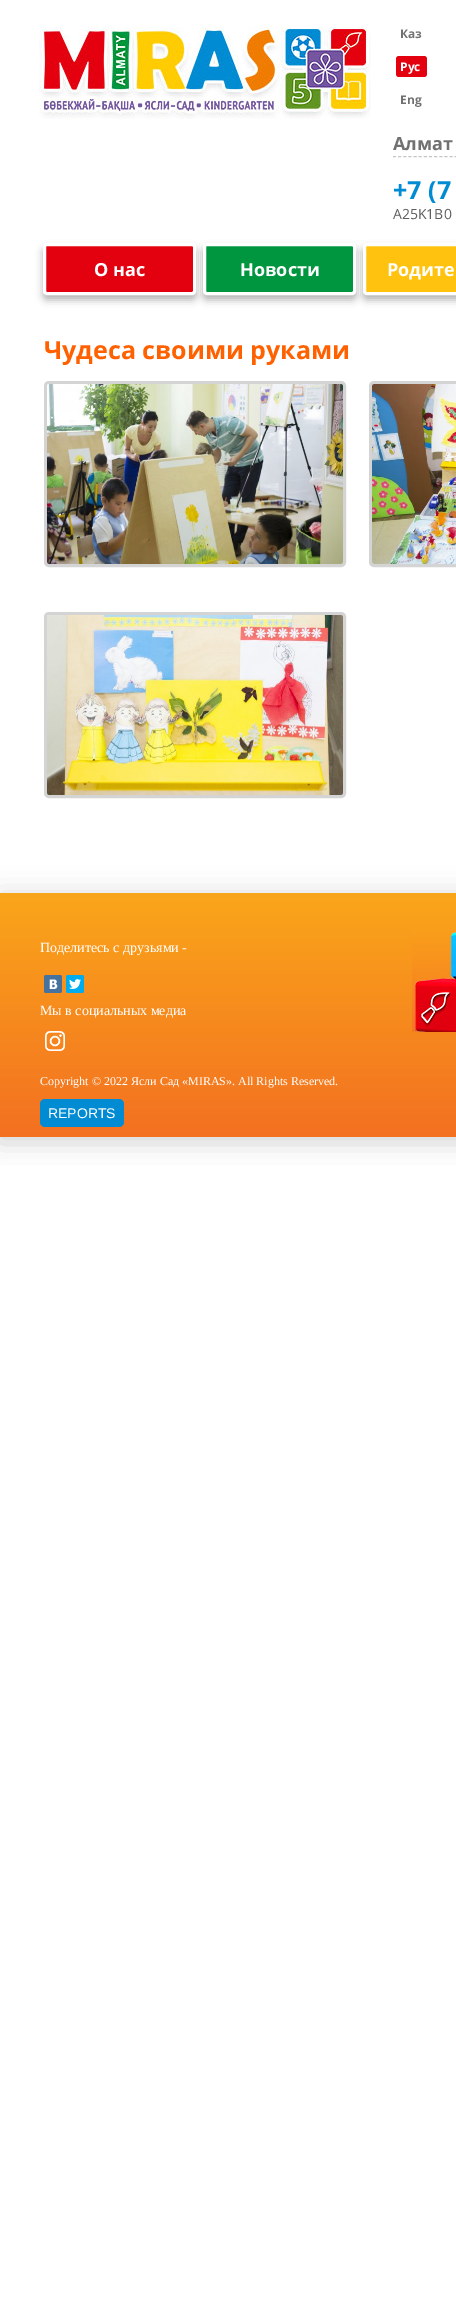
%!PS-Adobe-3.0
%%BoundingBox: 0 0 456 2319
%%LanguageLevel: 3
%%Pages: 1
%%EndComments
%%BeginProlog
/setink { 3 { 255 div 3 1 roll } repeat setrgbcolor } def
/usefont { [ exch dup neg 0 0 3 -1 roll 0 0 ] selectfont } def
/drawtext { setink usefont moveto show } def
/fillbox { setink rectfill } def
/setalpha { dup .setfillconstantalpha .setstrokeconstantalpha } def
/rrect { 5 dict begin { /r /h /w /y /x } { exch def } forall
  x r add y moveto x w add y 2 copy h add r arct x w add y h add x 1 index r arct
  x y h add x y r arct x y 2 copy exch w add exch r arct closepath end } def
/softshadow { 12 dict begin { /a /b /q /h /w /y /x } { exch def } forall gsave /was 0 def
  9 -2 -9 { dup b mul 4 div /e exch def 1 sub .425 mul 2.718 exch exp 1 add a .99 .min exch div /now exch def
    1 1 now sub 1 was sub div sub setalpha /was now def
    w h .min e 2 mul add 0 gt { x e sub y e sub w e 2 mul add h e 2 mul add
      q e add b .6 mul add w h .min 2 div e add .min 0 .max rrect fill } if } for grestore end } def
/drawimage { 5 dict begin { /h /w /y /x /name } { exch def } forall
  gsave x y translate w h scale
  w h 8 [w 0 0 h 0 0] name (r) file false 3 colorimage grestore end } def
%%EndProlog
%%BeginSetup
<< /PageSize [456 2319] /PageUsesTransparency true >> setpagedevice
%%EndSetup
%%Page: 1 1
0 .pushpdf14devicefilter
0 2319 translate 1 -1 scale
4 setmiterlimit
0 0 456 2319 255 255 255 fillbox
0 0 0 setink
0 0 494 1137 0 12.5 0.2 softshadow
0 0 456 893 255 255 255 fillbox
(assets/img1.rgb) 39 27 332 92 drawimage
(Каз) 400 38 /OpenSans-Bold 12 113 113 113 drawtext
227 0 15 setink
396 56 31 21 3 rrect fill
(Рус) 400 71 /OpenSans-Bold 12 255 255 255 drawtext
(Eng) 400 104 /OpenSans-Bold 12 113 113 113 drawtext
(Алмат) 393 150 /OpenSans-Bold 18 113 113 113 drawtext
198 198 198 setink
[3 2.14] 0 setdash
393 156.5 moveto 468 156.5 lineto stroke
(+7 \(7) 393 199 /OpenSans-Bold 25 0 139 210 drawtext
(A25K1B0) 393 219 /OpenSans-Regular 14 94 93 93 drawtext
0 0 0 setink
43 248 153 52 4 4 0.3 softshadow
227 0 15 setink
44.5 244.5 150 49 2.5 rrect gsave fill grestore
255 255 255 setink
3 setlinewidth
[] 0 setdash
stroke
(О нас) 94 276 /OpenSans-Bold 18 255 255 255 drawtext
0 0 0 setink
203 248 153 52 4 4 0.3 softshadow
0 150 63 setink
204.5 244.5 150 49 2.5 rrect gsave fill grestore
255 255 255 setink
stroke
(Новости) 240 276 /OpenSans-Bold 18 255 255 255 drawtext
0 0 0 setink
363 248 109 52 4 4 0.3 softshadow
255 194 14 setink
364.5 244.5 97 49 2.5 rrect gsave fill grestore
255 255 255 setink
stroke
(Родите) 387 276 /OpenSans-Bold 18 255 255 255 drawtext
(Чудеса своими руками) 44 359 /OpenSans-Bold 25 255 96 0 drawtext
212 212 212 setink
45.5 382.5 299 183 3.5 rrect stroke
(assets/img2.rgb) 47 384 296 180 drawimage
370.5 382.5 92 183 3.5 rrect stroke
(assets/img3.rgb) 372 384 84 180 drawimage
45.5 613.5 299 183 3.5 rrect stroke
(assets/img4.rgb) 47 615 296 180 drawimage
221 221 221 setink
0 893 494 244 0 12.5 1 softshadow
gsave 0 893 moveto 456 893 lineto 456 1137 lineto 0 1137 lineto closepath clip newpath
<< /ShadingType 2 /ColorSpace /DeviceRGB /Coords [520 1137 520 893] /Extend [true true] /Function << /FunctionType 2 /Domain [0 1] /C0 [0.953 0.439 0.129] /C1 [0.98 0.651 0.102] /N 1 >> >> shfill grestore
(Поделитесь с друзьями -) 40 952 /LiberationSerif-Regular 14 255 255 255 drawtext
72 114 158 setink
44 975 18 18 2 rrect fill
(assets/img5.rgb) 49 979 9 10 drawimage
0 172 237 setink
66 975 18 18 2 rrect fill
(assets/img6.rgb) 69 979 12 10 drawimage
(Мы в социальных медиа) 40 1015 /LiberationSerif-Regular 14 255 255 255 drawtext
(assets/img7.rgb) 45 1031 20 20 drawimage
(Copyright © 2022 Ясли Сад «MIRAS». All Rights Reserved.) 40 1085 /LiberationSerif-Regular 12 255 255 255 drawtext
(assets/img8.rgb) 412 928 44 104 drawimage
0 139 210 setink
40 1099 84 28 5 rrect fill
(REPORTS) 48 1118 /LiberationSans-Regular 14 255 255 255 drawtext
.poppdf14devicefilter showpage
%%EOF
